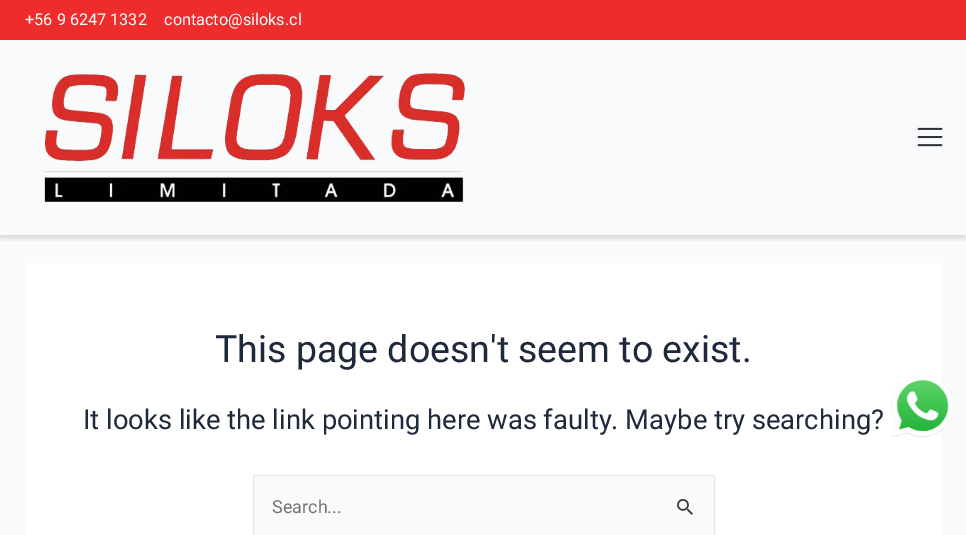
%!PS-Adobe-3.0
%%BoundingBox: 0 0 966 535
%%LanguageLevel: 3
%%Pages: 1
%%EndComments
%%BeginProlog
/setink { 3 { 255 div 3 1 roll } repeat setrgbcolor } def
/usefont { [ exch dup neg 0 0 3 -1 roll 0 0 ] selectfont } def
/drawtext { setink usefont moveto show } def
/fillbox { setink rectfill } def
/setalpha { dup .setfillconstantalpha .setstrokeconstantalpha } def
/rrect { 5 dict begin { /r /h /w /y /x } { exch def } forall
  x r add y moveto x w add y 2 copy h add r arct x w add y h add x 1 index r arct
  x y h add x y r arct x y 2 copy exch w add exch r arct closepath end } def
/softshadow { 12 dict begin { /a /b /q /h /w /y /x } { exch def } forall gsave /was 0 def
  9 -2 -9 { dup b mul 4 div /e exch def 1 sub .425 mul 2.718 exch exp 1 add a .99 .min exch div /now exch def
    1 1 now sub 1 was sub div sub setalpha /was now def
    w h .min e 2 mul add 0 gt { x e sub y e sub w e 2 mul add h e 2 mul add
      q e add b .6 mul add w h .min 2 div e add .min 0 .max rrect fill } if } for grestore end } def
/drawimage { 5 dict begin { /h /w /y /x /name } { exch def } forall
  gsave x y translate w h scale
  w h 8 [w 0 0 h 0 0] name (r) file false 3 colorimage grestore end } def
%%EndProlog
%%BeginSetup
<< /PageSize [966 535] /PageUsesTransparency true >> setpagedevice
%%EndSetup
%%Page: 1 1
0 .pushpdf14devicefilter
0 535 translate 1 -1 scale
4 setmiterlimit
0 0 966 535 249 250 251 fillbox
0 0 966 40 239 44 44 fillbox
(+56 9 6247 1332) 25 25 /Roboto-Regular 16.25 255 255 255 drawtext
(contacto@siloks.cl) 164 25 /Roboto-Regular 16.25 255 255 255 drawtext
gsave
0 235 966 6 rectclip
0 0 0 setink
0 43 966 195 0 3 0.15 softshadow
grestore
(assets/img1.rgb) 44 73 421 129 drawimage
(assets/img2.rgb) 917 127 26 20 drawimage
25 263 916 272 255 255 255 fillbox
(This page doesn't seem to exist.) 215 362 /Roboto-Regular 37.5 30 41 59 drawtext
(It looks like the link pointing here was faulty. Maybe try searching?) 83 429 /Roboto-Regular 27.35 30 41 59 drawtext
250 250 250 setink
253.5 475.5 461 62 2 rrect gsave fill grestore
226 232 240 setink
stroke
(Search...) 272 513 /Roboto-Regular 18 117 117 117 drawtext
(assets/img3.rgb) 677 499 16 16 drawimage
(assets/img4.rgb) 891 375 62 62 drawimage
.poppdf14devicefilter showpage
%%EOF
